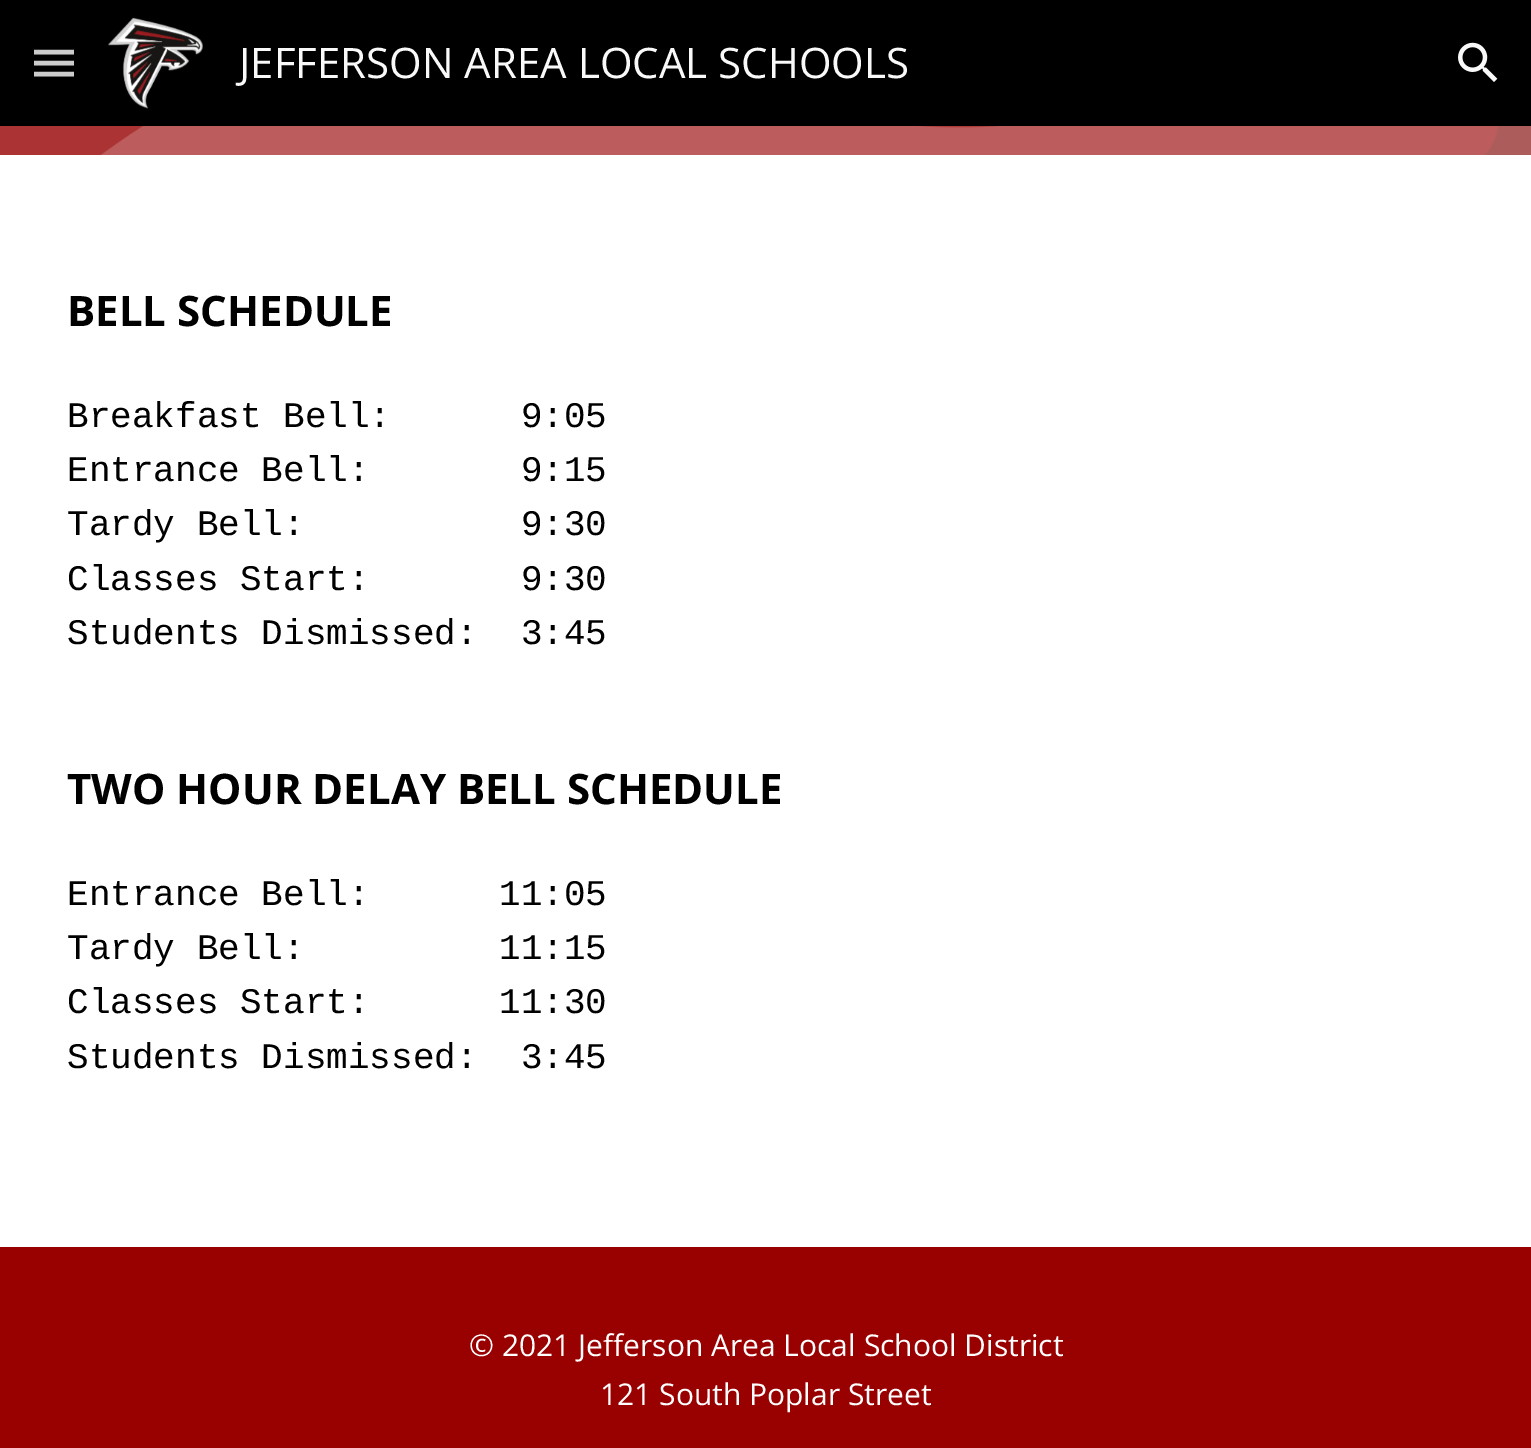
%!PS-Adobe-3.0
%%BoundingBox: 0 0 1531 1448
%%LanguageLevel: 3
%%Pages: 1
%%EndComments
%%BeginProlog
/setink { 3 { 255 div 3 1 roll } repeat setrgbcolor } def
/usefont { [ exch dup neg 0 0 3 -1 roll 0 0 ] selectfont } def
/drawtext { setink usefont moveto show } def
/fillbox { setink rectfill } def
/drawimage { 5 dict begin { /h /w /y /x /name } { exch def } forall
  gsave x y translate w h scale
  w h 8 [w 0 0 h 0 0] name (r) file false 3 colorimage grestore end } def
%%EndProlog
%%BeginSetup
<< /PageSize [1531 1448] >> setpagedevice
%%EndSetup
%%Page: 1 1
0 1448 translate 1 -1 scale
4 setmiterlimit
0 0 1531 1448 255 255 255 fillbox
0 0 1531 126 0 0 0 fillbox
204 204 204 setink
4.5 setlinewidth
34 52 moveto 74 52 lineto 34 63 moveto 74 63 lineto 34 74 moveto 74 74 lineto stroke
(assets/img1.rgb) 108 17 95 92 drawimage
(JEFFERSON AREA LOCAL SCHOOLS) 239 78 /OpenSans-Regular 42 249 249 249 drawtext
(assets/img2.rgb) 1458 42 40 40 drawimage
(assets/img3.rgb) 0 126 1531 29 drawimage
(BELL SCHEDULE) 67 326 /OpenSans-Bold 42 0 0 0 drawtext
(Breakfast Bell:      9:05) 67 427 /LiberationMono-Regular 36 0 0 0 drawtext
(Entrance Bell:       9:15) 67 481 /LiberationMono-Regular 36 0 0 0 drawtext
(Tardy Bell:          9:30) 67 535 /LiberationMono-Regular 36 0 0 0 drawtext
(Classes Start:       9:30) 67 590 /LiberationMono-Regular 36 0 0 0 drawtext
(Students Dismissed:  3:45) 67 644 /LiberationMono-Regular 36 0 0 0 drawtext
(TWO HOUR DELAY BELL SCHEDULE) 67 804 /OpenSans-Bold 42 0 0 0 drawtext
(Entrance Bell:      11:05) 67 905 /LiberationMono-Regular 36 0 0 0 drawtext
(Tardy Bell:         11:15) 67 959 /LiberationMono-Regular 36 0 0 0 drawtext
(Classes Start:      11:30) 67 1013 /LiberationMono-Regular 36 0 0 0 drawtext
(Students Dismissed:  3:45) 67 1068 /LiberationMono-Regular 36 0 0 0 drawtext
0 1247 1531 201 153 0 0 fillbox
(© 2021 Jefferson Area Local School District) 469 1356 /OpenSans-Regular 30 255 255 255 drawtext
(121 South Poplar Street) 600 1405 /OpenSans-Regular 30 255 255 255 drawtext
showpage
%%EOF
